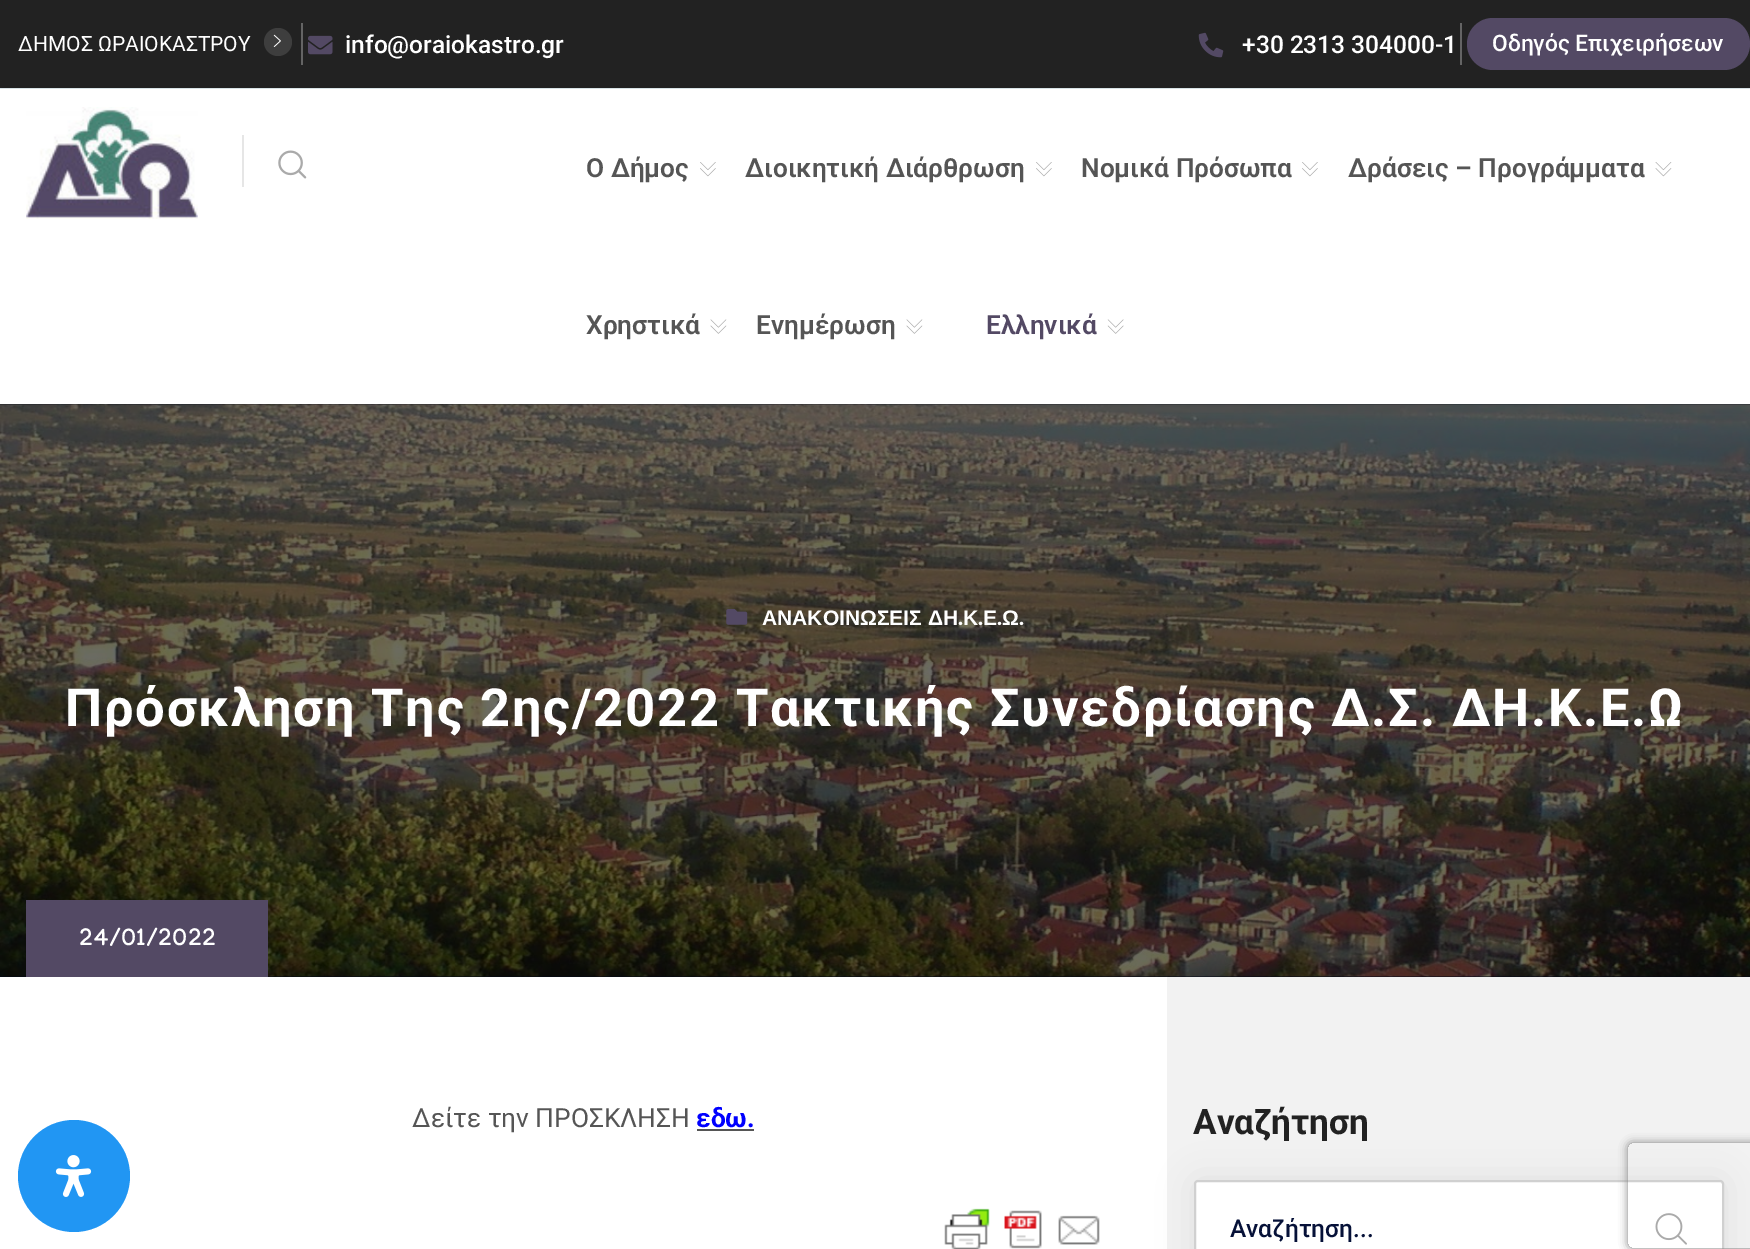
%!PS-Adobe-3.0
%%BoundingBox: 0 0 1750 1249
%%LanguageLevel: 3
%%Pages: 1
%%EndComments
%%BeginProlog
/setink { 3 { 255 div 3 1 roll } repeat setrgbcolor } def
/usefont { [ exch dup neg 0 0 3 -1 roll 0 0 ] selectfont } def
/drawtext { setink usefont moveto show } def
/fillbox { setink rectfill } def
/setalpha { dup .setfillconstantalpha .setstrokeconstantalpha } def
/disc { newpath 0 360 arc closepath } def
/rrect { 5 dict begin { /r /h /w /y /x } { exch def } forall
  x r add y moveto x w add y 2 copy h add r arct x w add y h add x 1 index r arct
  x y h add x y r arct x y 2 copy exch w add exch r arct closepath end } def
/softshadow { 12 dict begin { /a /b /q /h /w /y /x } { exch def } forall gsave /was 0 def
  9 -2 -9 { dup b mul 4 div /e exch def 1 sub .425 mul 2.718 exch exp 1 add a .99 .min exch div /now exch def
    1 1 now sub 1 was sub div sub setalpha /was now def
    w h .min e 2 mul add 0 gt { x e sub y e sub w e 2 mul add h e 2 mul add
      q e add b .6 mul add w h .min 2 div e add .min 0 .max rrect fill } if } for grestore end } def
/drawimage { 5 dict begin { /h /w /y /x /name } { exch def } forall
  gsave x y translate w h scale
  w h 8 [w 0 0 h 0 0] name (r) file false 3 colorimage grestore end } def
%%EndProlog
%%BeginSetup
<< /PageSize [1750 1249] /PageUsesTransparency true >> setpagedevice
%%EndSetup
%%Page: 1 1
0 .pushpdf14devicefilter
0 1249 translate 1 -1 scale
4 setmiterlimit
0 0 1750 1249 255 255 255 fillbox
0 0 1750 88 34 34 34 fillbox
0 88 1750 1 226 238 242 fillbox
(ΔΗΜΟΣ ΩΡΑΙΟΚΑΣΤΡΟΥ) 18 51 /Roboto-Regular 21 255 255 255 drawtext
62 62 62 setink
278 42 14 disc fill
(assets/img1.rgb) 273 34 8 13 drawimage
301 23 2 42 100 100 100 fillbox
(assets/img2.rgb) 308 35 25 20 drawimage
(info@oraiokastro.gr) 345 53 /Roboto-Medium 24.5 255 255 255 drawtext
(assets/img3.rgb) 1198 32 26 26 drawimage
(+30 2313 304000-1) 1242 53 /Roboto-Medium 24.5 255 255 255 drawtext
0 404 1750 573 3 7 24 fillbox
(assets/img10.rgb) 0 404 1750 573 drawimage
0 0 0 setink
0 89 1750 315 0 13 0.1 softshadow
1460 23 2 42 100 100 100 fillbox
83 73 100 setink
1467 18 283 52 26 rrect fill
(Οδηγός Επιχειρήσεων) 1492 51 /Roboto-Medium 22.75 255 255 255 drawtext
0 89 1750 315 255 255 255 fillbox
(assets/img4.rgb) 26 107 172 112 drawimage
242 135 2 52 230 230 230 fillbox
(assets/img5.rgb) 278 150 29 29 drawimage
(Ο Δήμος) 586 177 /Roboto-SemiBold 26.25 85 85 85 drawtext
(assets/img6.rgb) 700 162 16 15 drawimage
(Διοικητική Διάρθρωση) 745 177 /Roboto-SemiBold 26.25 85 85 85 drawtext
(assets/img6.rgb) 1036 162 16 15 drawimage
(Νομικά Πρόσωπα) 1081 177 /Roboto-SemiBold 26.25 85 85 85 drawtext
(assets/img6.rgb) 1302 162 16 15 drawimage
(Δράσεις – Προγράμματα) 1348 177 /Roboto-SemiBold 26.25 85 85 85 drawtext
(assets/img7.rgb) 1655 162 17 15 drawimage
(Χρηστικά) 586 334 /Roboto-SemiBold 26.25 85 85 85 drawtext
(assets/img8.rgb) 710 319 17 15 drawimage
(Ενημέρωση) 756 334 /Roboto-SemiBold 26.25 85 85 85 drawtext
(assets/img8.rgb) 906 319 17 15 drawimage
(Ελληνικά) 986 334 /Roboto-SemiBold 26.25 83 73 100 drawtext
(assets/img9.rgb) 1107 319 17 15 drawimage
(assets/img11.rgb) 726 609 22 16 drawimage
(ΑΝΑΚΟΙΝΩΣΕΙΣ ΔΗ) 762 625 /LiberationSans-Bold 21 255 255 255 drawtext
(.) 958 625 /Manjari-Bold 21 255 255 255 drawtext
(Κ) 963 625 /LiberationSans-Bold 21 255 255 255 drawtext
(.) 978 625 /Manjari-Bold 21 255 255 255 drawtext
(Ε) 983 625 /LiberationSans-Bold 21 255 255 255 drawtext
(.) 997 625 /Manjari-Bold 21 255 255 255 drawtext
(Ω) 1002 625 /LiberationSans-Bold 21 255 255 255 drawtext
(.) 1019 625 /Manjari-Bold 21 255 255 255 drawtext
/Roboto-Bold 52.5 usefont
65 726 moveto 1.75 0 (Πρόσκληση Της 2ης/2022 Τακτικής Συνεδρίασης Δ.Σ. ΔΗ.Κ.Ε.Ω) ashow
26 900 242 77 83 73 100 fillbox
(24/01/2022) 79 945 /Manjari-Bold 24.5 255 255 255 drawtext
(Δείτε την ΠΡΟΣΚΛΗΣΗ) 412 1127 /Roboto-Regular 26.25 85 85 85 drawtext
(εδω.) 696 1127 /Roboto-Bold 26.25 0 0 255 drawtext
697 1129 57 2 85 85 85 fillbox
(assets/img12.rgb) 944 1208 156 41 drawimage
1167 977 583 272 242 242 242 fillbox
(Αναζήτηση) 1193 1134 /Roboto-Bold 35 34 34 34 drawtext
0 0 0 setink
1194 1180 530 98 4 17.5 0.07 softshadow
255 255 255 setink
1195 1181 528 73 3 rrect gsave fill grestore
208 208 208 setink
2 setlinewidth
stroke
(Αναζήτηση...) 1230 1237 /Roboto-Medium 24.5 6 17 56 drawtext
(assets/img13.rgb) 1655 1213 32 32 drawimage
33 150 243 setink
74 1176 56 disc fill
(assets/img14.rgb) 55 1155 37 42 drawimage
gsave
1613 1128 moveto 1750 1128 lineto 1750 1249 lineto 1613 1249 lineto closepath 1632 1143 moveto 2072 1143 lineto 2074 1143 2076 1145 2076 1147 curveto 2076 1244 lineto 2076 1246 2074 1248 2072 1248 curveto 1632 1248 lineto 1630 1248 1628 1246 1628 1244 curveto 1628 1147 lineto 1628 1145 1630 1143 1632 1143 curveto closepath eoclip newpath
128 128 128 setink
1628 1143 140 105 4 4.5 1 softshadow
grestore
.poppdf14devicefilter showpage
%%EOF
